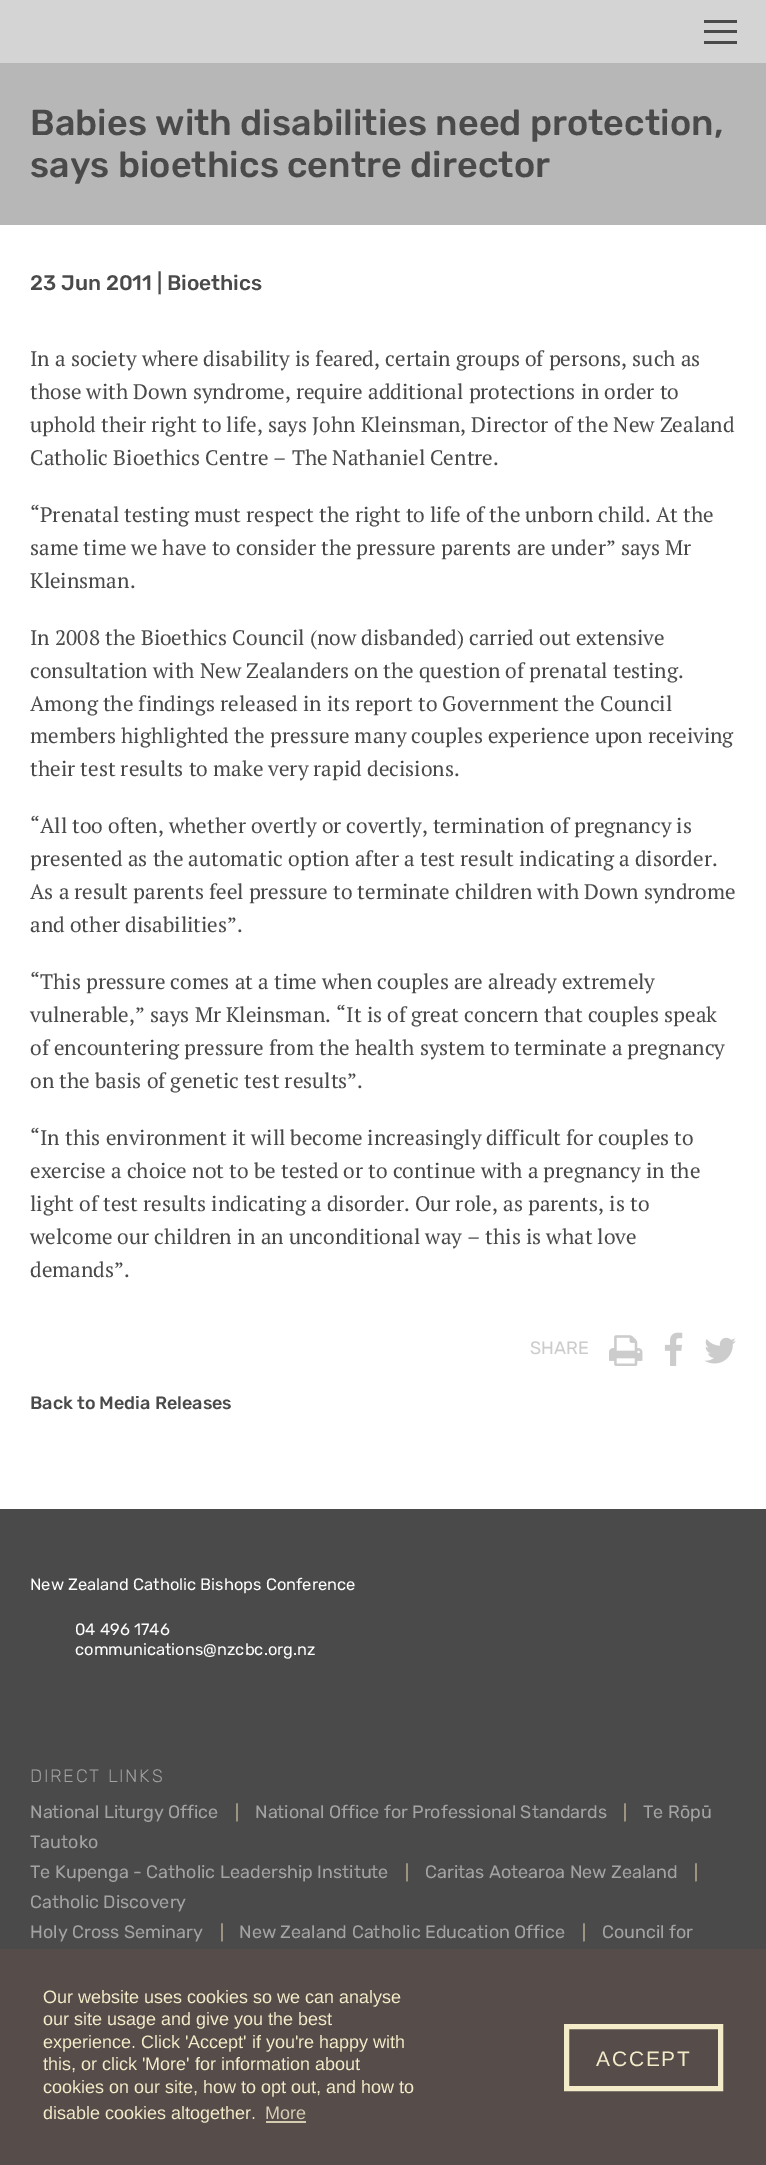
%!PS-Adobe-3.0
%%BoundingBox: 0 0 766 2165
%%LanguageLevel: 3
%%Pages: 1
%%EndComments
%%BeginProlog
/setink { 3 { 255 div 3 1 roll } repeat setrgbcolor } def
/usefont { [ exch dup neg 0 0 3 -1 roll 0 0 ] selectfont } def
/drawtext { setink usefont moveto show } def
/fillbox { setink rectfill } def
/drawimage { 5 dict begin { /h /w /y /x /name } { exch def } forall
  gsave x y translate w h scale
  w h 8 [w 0 0 h 0 0] name (r) file false 3 colorimage grestore end } def
%%EndProlog
%%BeginSetup
<< /PageSize [766 2165] >> setpagedevice
%%EndSetup
%%Page: 1 1
0 2165 translate 1 -1 scale
4 setmiterlimit
0 0 766 2165 255 255 255 fillbox
0 0 766 63 212 212 212 fillbox
704 30 33 3 74 74 74 fillbox
704 20 33 3 74 74 74 fillbox
704 41 33 3 74 74 74 fillbox
0 63 766 162 183 183 183 fillbox
(Babies with disabilities need protection,) 30 135 /Rubik-Medium 36 74 74 74 drawtext
(says bioethics centre director) 30 177 /Rubik-Medium 36 74 74 74 drawtext
(23 Jun 2011 | Bioethics) 30 290 /Rubik-Medium 21 74 74 74 drawtext
(In a society where disability is feared, certain groups of persons, such as) 30 366 /PTSerif-Regular 21 74 74 74 drawtext
(those with Down syndrome, require additional protections in order to) 30 399 /PTSerif-Regular 21 74 74 74 drawtext
(uphold their right to life, says John Kleinsman, Director of the New Zealand) 30 432 /PTSerif-Regular 21 74 74 74 drawtext
(Catholic Bioethics Centre – The Nathaniel Centre.) 30 465 /PTSerif-Regular 21 74 74 74 drawtext
(“Prenatal testing must respect the right to life of the unborn child. At the) 30 522 /PTSerif-Regular 21 74 74 74 drawtext
(same time we have to consider the pressure parents are under” says Mr) 30 555 /PTSerif-Regular 21 74 74 74 drawtext
(Kleinsman.) 30 588 /PTSerif-Regular 21 74 74 74 drawtext
(In 2008 the Bioethics Council \(now disbanded\) carried out extensive) 30 645 /PTSerif-Regular 21 74 74 74 drawtext
(consultation with New Zealanders on the question of prenatal testing.) 30 678 /PTSerif-Regular 21 74 74 74 drawtext
(Among the findings released in its report to Government the Council) 30 711 /PTSerif-Regular 21 74 74 74 drawtext
(members highlighted the pressure many couples experience upon receiving) 30 743 /PTSerif-Regular 21 74 74 74 drawtext
(their test results to make very rapid decisions.) 30 776 /PTSerif-Regular 21 74 74 74 drawtext
(“All too often, whether overtly or covertly, termination of pregnancy is) 30 833 /PTSerif-Regular 21 74 74 74 drawtext
(presented as the automatic option after a test result indicating a disorder.) 30 866 /PTSerif-Regular 21 74 74 74 drawtext
(As a result parents feel pressure to terminate children with Down syndrome) 30 899 /PTSerif-Regular 21 74 74 74 drawtext
(and other disabilities”.) 30 932 /PTSerif-Regular 21 74 74 74 drawtext
(“This pressure comes at a time when couples are already extremely) 30 989 /PTSerif-Regular 21 74 74 74 drawtext
(vulnerable,” says Mr Kleinsman. “It is of great concern that couples speak) 30 1022 /PTSerif-Regular 21 74 74 74 drawtext
(of encountering pressure from the health system to terminate a pregnancy) 30 1055 /PTSerif-Regular 21 74 74 74 drawtext
(on the basis of genetic test results”.) 30 1088 /PTSerif-Regular 21 74 74 74 drawtext
(“In this environment it will become increasingly difficult for couples to) 30 1145 /PTSerif-Regular 21 74 74 74 drawtext
(exercise a choice not to be tested or to continue with a pregnancy in the) 30 1178 /PTSerif-Regular 21 74 74 74 drawtext
(light of test results indicating a disorder. Our role, as parents, is to) 30 1211 /PTSerif-Regular 21 74 74 74 drawtext
(welcome our children in an unconditional way – this is what love) 30 1244 /PTSerif-Regular 21 74 74 74 drawtext
(demands”.) 30 1277 /PTSerif-Regular 21 74 74 74 drawtext
(SHARE) 530 1354 /Rubik-Regular 18 204 204 204 drawtext
(assets/img1.rgb) 609 1335 34 31 drawimage
(assets/img2.rgb) 664 1332 19 34 drawimage
(assets/img3.rgb) 704 1337 32 27 drawimage
(Back to Media Releases) 30 1409 /Rubik-Medium 18 74 74 74 drawtext
0 1509 766 440 74 74 74 fillbox
(New Zealand Catholic Bishops Conference) 30 1590 /Rubik-Regular 16.5 255 255 255 drawtext
(04 496 1746) 75 1635 /Rubik-Regular 16.5 255 255 255 drawtext
(communications@nzcbc.org.nz) 75 1655 /Rubik-Regular 16.5 255 255 255 drawtext
/Rubik-Light 18 usefont
163 163 163 setink
30 1782 moveto 1.75 0 (DIRECT LINKS) ashow
(National Liturgy Office) 30 1818 /Rubik-Regular 18 163 163 163 drawtext
(|) 235 1818 /Rubik-Regular 16.5 187 175 149 drawtext
(National Office for Professional Standards) 255 1818 /Rubik-Regular 18 163 163 163 drawtext
(|) 623 1818 /Rubik-Regular 16.5 187 175 149 drawtext
(Te Rōpū) 643 1818 /Rubik-Regular 18 163 163 163 drawtext
(Tautoko) 30 1848 /Rubik-Regular 18 163 163 163 drawtext
(Te Kupenga - Catholic Leadership Institute) 30 1878 /Rubik-Regular 18 163 163 163 drawtext
(|) 405 1878 /Rubik-Regular 16.5 187 175 149 drawtext
(Caritas Aotearoa New Zealand) 425 1878 /Rubik-Regular 18 163 163 163 drawtext
(|) 694 1878 /Rubik-Regular 16.5 187 175 149 drawtext
(Catholic Discovery) 30 1908 /Rubik-Regular 18 163 163 163 drawtext
(Holy Cross Seminary) 30 1938 /Rubik-Regular 18 163 163 163 drawtext
(|) 220 1938 /Rubik-Regular 16.5 187 175 149 drawtext
(New Zealand Catholic Education Office) 239 1938 /Rubik-Regular 18 163 163 163 drawtext
(|) 582 1938 /Rubik-Regular 16.5 187 175 149 drawtext
(Council for) 602 1938 /Rubik-Regular 18 163 163 163 drawtext
0 1949 766 216 86 76 74 fillbox
(Our website uses cookies so we can analyse) 43 2003 /LiberationSans-Regular 18 244 235 201 drawtext
(our site usage and give you the best) 43 2025 /LiberationSans-Regular 18 244 235 201 drawtext
(experience. Click 'Accept' if you're happy with) 43 2048 /LiberationSans-Regular 18 244 235 201 drawtext
(this, or click 'More' for information about) 43 2070 /LiberationSans-Regular 18 244 235 201 drawtext
(cookies on our site, how to opt out, and how to) 43 2093 /LiberationSans-Regular 18 244 235 201 drawtext
(disable cookies altogether.) 43 2119 /LiberationSans-Regular 18 244 235 201 drawtext
(More) 265 2119 /LiberationSans-Regular 18 212 203 176 drawtext
266 2121 40 2 212 203 176 fillbox
244 235 201 setink
5 setlinewidth
566.5 2026.5 154 62 rectstroke
/LiberationSans-Regular 21 usefont
596 2066 moveto 1.75 0 (ACCEPT) ashow
showpage
%%EOF
